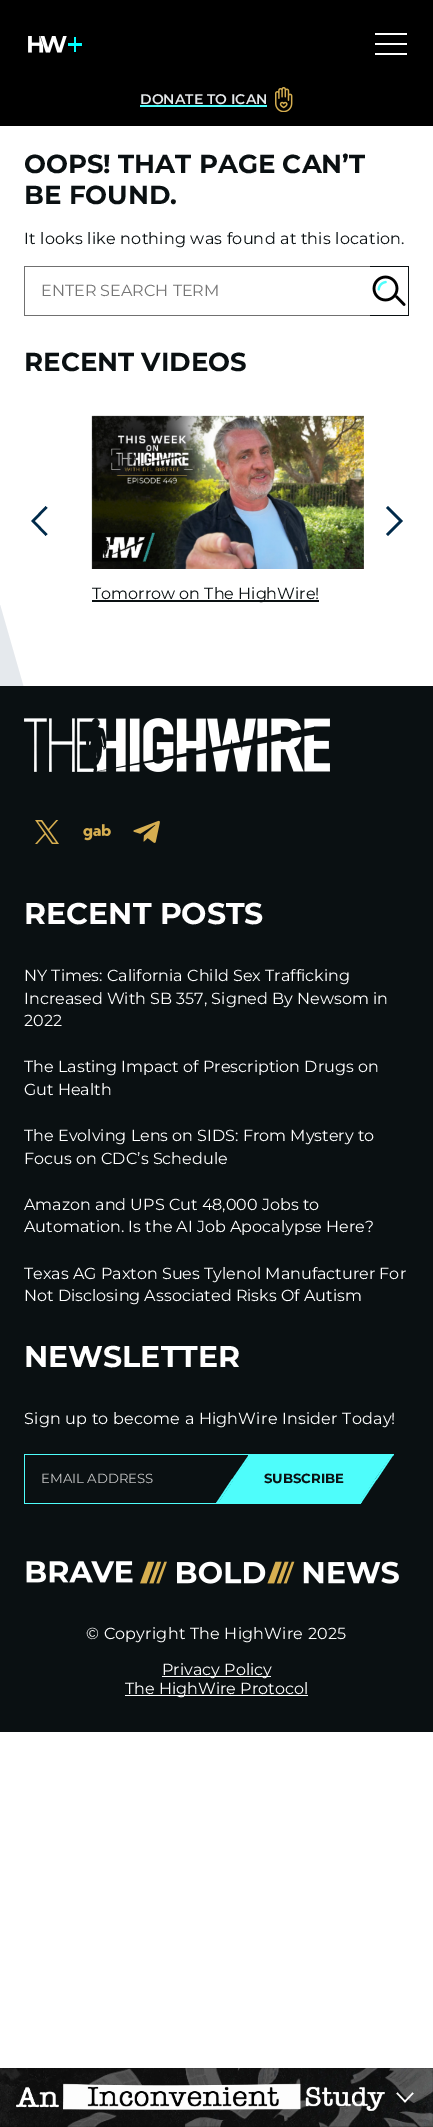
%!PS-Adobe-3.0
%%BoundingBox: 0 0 433 2127
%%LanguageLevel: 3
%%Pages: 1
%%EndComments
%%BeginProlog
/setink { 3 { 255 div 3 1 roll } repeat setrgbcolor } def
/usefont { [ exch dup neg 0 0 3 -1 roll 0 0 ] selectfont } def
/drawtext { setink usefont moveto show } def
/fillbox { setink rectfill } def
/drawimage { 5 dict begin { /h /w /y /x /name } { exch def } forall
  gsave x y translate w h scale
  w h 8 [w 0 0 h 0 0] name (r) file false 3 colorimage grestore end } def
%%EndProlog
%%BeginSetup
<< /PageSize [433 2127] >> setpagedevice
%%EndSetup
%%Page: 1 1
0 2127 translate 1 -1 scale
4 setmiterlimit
0 0 433 2127 255 255 255 fillbox
0 0 433 126 0 0 0 fillbox
(assets/img1.rgb) 28 36 54 17 drawimage
375 43 32 2 255 255 255 fillbox
375 33 32 2 255 255 255 fillbox
375 53 32 2 255 255 255 fillbox
(DONATE TO ICAN) 140 104 /Montserrat-SemiBold 14 228 232 234 drawtext
140 105 127 2 78 253 251 fillbox
(assets/img2.rgb) 275 87 18 25 drawimage
(assets/img3.rgb) 0 605 24 81 drawimage
(OOPS! THAT PAGE CAN’T) 24 173 /Montserrat-Bold 26 10 16 18 drawtext
(BE FOUND.) 24 204 /Montserrat-Bold 26 10 16 18 drawtext
/Montserrat-Regular 16 usefont
24 244 moveto 0.2 0 (It looks like nothing was found at this location.) ashow
24 266 346 1 112 112 112 fillbox
24 315 346 1 112 112 112 fillbox
24 266 1 50 112 112 112 fillbox
(ENTER SEARCH TERM) 41 296 /Montserrat-Regular 16 117 117 117 drawtext
370 266 39 1 10 16 18 fillbox
408 266 1 50 10 16 18 fillbox
370 315 39 1 10 16 18 fillbox
(assets/img4.rgb) 372 275 34 31 drawimage
(RECENT VIDEOS) 24 371 /Montserrat-Bold 26 10 16 18 drawtext
0 42 74 setink
2.5 setlinewidth
46.5 535 moveto 33 521 lineto 46.5 507 lineto stroke
387 507 moveto 401 521 lineto 387 535 lineto stroke
(assets/img5.rgb) 91 415 273 154 drawimage
92 600 227 2 10 16 18 fillbox
(Tomorrow on The HighWire!) 92 599 /Montserrat-Regular 16 10 16 18 drawtext
0 686 433 1046 10 16 18 fillbox
(assets/img6.rgb) 24 718 306 54 drawimage
(assets/img7.rgb) 35 820 24 24 drawimage
(assets/img8.rgb) 83 824 28 17 drawimage
(assets/img9.rgb) 133 820 27 23 drawimage
(RECENT POSTS) 24 924 /Montserrat-Bold 30 255 255 255 drawtext
(NY Times: California Child Sex Trafficking) 24 981 /Montserrat-Regular 16 255 255 255 drawtext
(Increased With SB 357, Signed By Newsom in) 24 1004 /Montserrat-Regular 16 255 255 255 drawtext
(2022) 24 1026 /Montserrat-Regular 16 255 255 255 drawtext
(The Lasting Impact of Prescription Drugs on) 24 1072 /Montserrat-Regular 16 255 255 255 drawtext
(Gut Health) 24 1095 /Montserrat-Regular 16 255 255 255 drawtext
(The Evolving Lens on SIDS: From Mystery to) 24 1141 /Montserrat-Regular 16 255 255 255 drawtext
(Focus on CDC’s Schedule) 24 1164 /Montserrat-Regular 16 255 255 255 drawtext
(Amazon and UPS Cut 48,000 Jobs to) 24 1210 /Montserrat-Regular 16 255 255 255 drawtext
(Automation. Is the AI Job Apocalypse Here?) 24 1232 /Montserrat-Regular 16 255 255 255 drawtext
(Texas AG Paxton Sues Tylenol Manufacturer For) 24 1279 /Montserrat-Regular 16 255 255 255 drawtext
(Not Disclosing Associated Risks Of Autism) 24 1301 /Montserrat-Regular 16 255 255 255 drawtext
(NEWSLETTER) 24 1367 /Montserrat-Bold 30 255 255 255 drawtext
/Montserrat-Regular 16 usefont
24 1424 moveto 0.2 0 (Sign up to become a HighWire Insider Today!) ashow
24 1454 225 1 78 253 251 fillbox
24 1503 193 1 78 253 251 fillbox
24 1454 1 50 78 253 251 fillbox
(EMAIL ADDRESS) 41 1483 /Montserrat-Regular 13.25 198 198 198 drawtext
78 253 251 setink
250 1456 moveto 391 1456 lineto 375 1479 lineto 234 1479 lineto closepath fill
249 1454 moveto 394 1454 lineto 393 1456 lineto 248 1456 lineto closepath fill
392 1454 moveto 394 1454 lineto 377 1479.5 lineto 375 1479.5 lineto closepath fill
249.5 1454 moveto 251.5 1454 lineto 234 1479.5 lineto 232 1479.5 lineto closepath fill
234 1479 moveto 375 1479 lineto 360 1502 lineto 219 1502 lineto closepath fill
(SUBSCRIBE) 264 1483 /Montserrat-Bold 13.25 10 16 18 drawtext
78 253 251 setink
375 1479 moveto 377 1479 lineto 360.5 1504 lineto 358.5 1504 lineto closepath fill
217 1502 moveto 362 1502 lineto 360 1504 lineto 216 1504 lineto closepath fill
232 1479 moveto 234 1479 lineto 217.5 1504 lineto 215.5 1504 lineto closepath fill
(assets/img10.rgb) 26 1561 373 23 drawimage
/Montserrat-Regular 16 usefont
255 255 255 setink
86 1639 moveto 0.2 0 (© Copyright The HighWire 2025) ashow
162 1676 109 1 255 255 255 fillbox
(Privacy Policy) 162 1675 /Montserrat-Regular 16 255 255 255 drawtext
125 1695 183 1 255 255 255 fillbox
(The HighWire Protocol) 125 1694 /Montserrat-Regular 16 255 255 255 drawtext
(assets/img11.rgb) 0 2068 433 59 drawimage
(assets/img12.rgb) 16 2083 369 28 drawimage
1.5 setlinewidth
397 2093 moveto 405 2101.5 lineto 413 2093 lineto stroke
showpage
%%EOF
